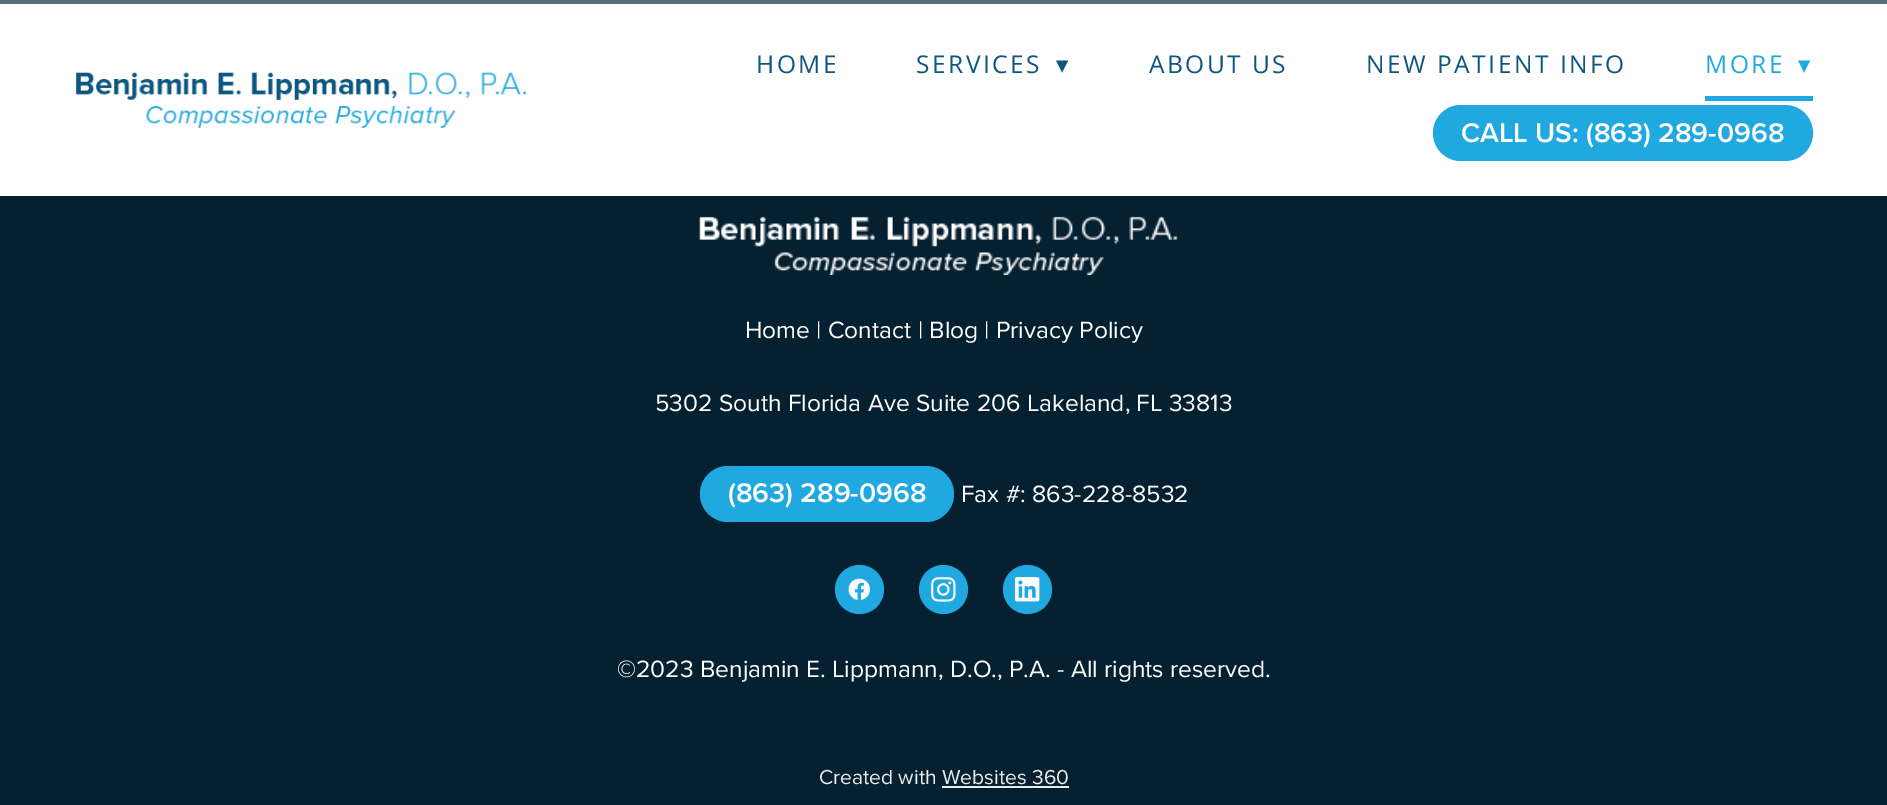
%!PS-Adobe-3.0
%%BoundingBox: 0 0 1887 805
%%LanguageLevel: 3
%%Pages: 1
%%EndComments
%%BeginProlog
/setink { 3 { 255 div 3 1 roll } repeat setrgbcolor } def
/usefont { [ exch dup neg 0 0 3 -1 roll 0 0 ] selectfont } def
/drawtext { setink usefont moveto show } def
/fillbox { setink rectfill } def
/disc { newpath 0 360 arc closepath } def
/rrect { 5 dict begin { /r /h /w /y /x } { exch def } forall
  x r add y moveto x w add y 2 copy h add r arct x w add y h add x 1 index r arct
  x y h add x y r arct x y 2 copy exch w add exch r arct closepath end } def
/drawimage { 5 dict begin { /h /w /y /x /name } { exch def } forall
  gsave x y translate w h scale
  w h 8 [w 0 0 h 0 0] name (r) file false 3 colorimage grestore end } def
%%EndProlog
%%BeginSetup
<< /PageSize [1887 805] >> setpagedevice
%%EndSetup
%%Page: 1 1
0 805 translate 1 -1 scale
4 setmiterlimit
0 0 1887 805 5 32 48 fillbox
0 4 1887 192 255 255 255 fillbox
0 0 1887 4 88 113 117 fillbox
(assets/img1.rgb) 76 72 451 56 drawimage
/OpenSans-Regular 24.5 usefont
13 86 128 setink
756 73 moveto 2.5 0 (HOME) ashow
916 73 moveto 2.5 0 (SERVICES) ashow
/DejaVuSans-Regular 24.5 usefont
1056 73 moveto 2.5 0 (▾) ashow
/OpenSans-Regular 24.5 usefont
1149 73 moveto 2.5 0 (ABOUT US) ashow
1366 73 moveto 2.5 0 (NEW PATIENT INFO) ashow
32 168 224 setink
1705 73 moveto 2.5 0 (MORE) ashow
/DejaVuSans-Regular 24.5 usefont
1798 73 moveto 2.5 0 (▾) ashow
1705 96 108 5 32 168 224 fillbox
1433 105 380 56 28 rrect fill
(CALL US: \(863\) 289-0968) 1461 142 /ProximaNova-SemiBold 28 255 255 255 drawtext
(assets/img2.rgb) 699 216 479 59 drawimage
(Home | Contact | Blog | Privacy Policy) 745 338 /ProximaNova-Regular 24.5 255 255 255 drawtext
(5302 South Florida Ave Suite 206 Lakeland, FL 33813) 655 411 /ProximaNova-Regular 24.5 255 255 255 drawtext
32 168 224 setink
700 466 254 56 28 rrect fill
(\(863\) 289-0968) 728 502 /ProximaNova-SemiBold 28 255 255 255 drawtext
(Fax #: 863-228-8532) 961 502 /ProximaNova-Regular 24.5 255 255 255 drawtext
32 168 224 setink
859.5 589.5 24.5 disc fill
(assets/img3.rgb) 848 578 22 22 drawimage
943.5 589.5 24.5 disc fill
(assets/img4.rgb) 931 577 25 25 drawimage
1027.5 589.5 24.5 disc fill
(assets/img5.rgb) 1015 577 25 25 drawimage
(©2023 Benjamin E. Lippmann, D.O., P.A. - All rights reserved.) 617 677 /ProximaNova-Regular 24.5 255 255 255 drawtext
(Created with Websites 360) 819 784 /ProximaNova-Regular 21 235 235 235 drawtext
942 786 127 2 235 235 235 fillbox
showpage
%%EOF
